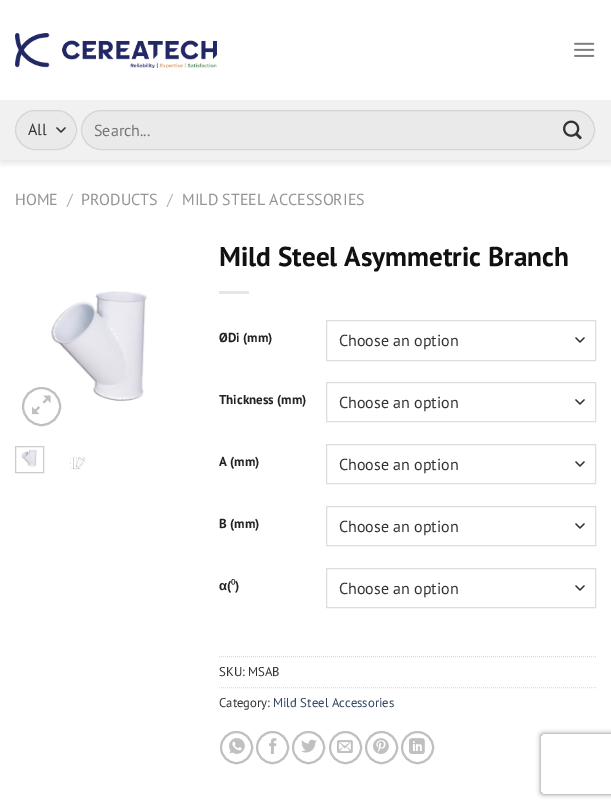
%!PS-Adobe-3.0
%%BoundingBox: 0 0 611 808
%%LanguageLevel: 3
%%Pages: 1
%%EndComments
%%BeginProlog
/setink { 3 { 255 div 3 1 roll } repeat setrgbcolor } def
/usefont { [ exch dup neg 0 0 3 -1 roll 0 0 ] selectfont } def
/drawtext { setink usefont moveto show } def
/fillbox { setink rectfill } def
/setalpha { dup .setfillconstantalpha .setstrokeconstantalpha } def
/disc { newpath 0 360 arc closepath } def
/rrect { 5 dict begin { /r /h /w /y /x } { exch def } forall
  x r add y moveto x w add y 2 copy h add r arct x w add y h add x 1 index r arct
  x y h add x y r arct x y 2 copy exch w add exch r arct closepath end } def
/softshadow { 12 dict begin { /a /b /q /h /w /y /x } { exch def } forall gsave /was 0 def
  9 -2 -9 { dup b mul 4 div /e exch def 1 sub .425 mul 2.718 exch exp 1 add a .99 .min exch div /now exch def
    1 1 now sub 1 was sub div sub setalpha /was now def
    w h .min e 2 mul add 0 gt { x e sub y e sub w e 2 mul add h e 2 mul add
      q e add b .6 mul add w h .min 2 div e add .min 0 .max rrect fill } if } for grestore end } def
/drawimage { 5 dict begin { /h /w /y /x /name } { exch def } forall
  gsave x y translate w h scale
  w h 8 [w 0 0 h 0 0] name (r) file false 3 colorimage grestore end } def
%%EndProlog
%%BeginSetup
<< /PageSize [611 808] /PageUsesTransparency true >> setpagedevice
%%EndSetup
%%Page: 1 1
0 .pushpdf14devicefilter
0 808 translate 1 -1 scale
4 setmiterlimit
0 0 611 808 255 255 255 fillbox
gsave
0 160 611 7 rectclip
0 0 0 setink
1 1 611 160 0 5 0.15 softshadow
grestore
(assets/img1.rgb) 15 33 202 35 drawimage
(assets/img2.rgb) 574 42 21 15 drawimage
0 100 611 60 241 241 241 fillbox
234 234 234 setink
15 110 62 40 20 rrect fill
51 51 51 setink
1.3 setlinewidth
1 setlinecap
1 setlinejoin
57 128 moveto 61 132 lineto 65 128 lineto stroke
0.09 setalpha
0 0 0 setink
1 setlinewidth
0 setlinecap
0 setlinejoin
15.5 110.5 61 39 19.5 rrect stroke
1 setalpha
(All) 28 135 /PTSans-Regular 16 51 51 51 drawtext
234 234 234 setink
81 110 514 40 20 rrect fill
0.09 setalpha
0 0 0 setink
81.5 110.5 513 39 19.5 rrect stroke
1 setalpha
(Search...) 94 136 /PTSans-Regular 16 117 117 117 drawtext
(assets/img3.rgb) 563 120 19 20 drawimage
(HOME) 15 205 /PTSans-Regular 16 148 148 148 drawtext
(/) 67 205 /PTSans-Regular 16 178 178 178 drawtext
(PRODUCTS) 81 205 /PTSans-Regular 16 148 148 148 drawtext
(/) 167 205 /PTSans-Regular 16 178 178 178 drawtext
(MILD STEEL ACCESSORIES) 182 205 /PTSans-Regular 16 148 148 148 drawtext
(assets/img4.rgb) 51 291 96 111 drawimage
192 192 192 setink
2 setlinewidth
41.5 406.5 18.5 disc stroke
(assets/img5.rgb) 32 395 19 20 drawimage
204 204 204 setink
1 setlinewidth
15.5 446.5 28 26 rectstroke
(assets/img6.rgb) 21 449 16 18 drawimage
(assets/img7.rgb) 69 457 17 13 drawimage
(Mild Steel Asymmetric Branch) 219 266 /PTSans-Bold 27.25 17 17 17 drawtext
219 291 30 3 230 230 230 fillbox
(ØDi \(mm\)) 219 342 /PTSans-Bold 13 34 34 34 drawtext
51 51 51 setink
1.3 setlinewidth
1 setlinecap
1 setlinejoin
576 338 moveto 580 342 lineto 584 338 lineto stroke
221 221 221 setink
1 setlinewidth
0 setlinecap
0 setlinejoin
326.5 320.5 269 40 rectstroke
(Choose an option) 339 346 /PTSans-Regular 16 51 51 51 drawtext
(Thickness \(mm\)) 219 404 /PTSans-Bold 13 34 34 34 drawtext
51 51 51 setink
1.3 setlinewidth
1 setlinecap
1 setlinejoin
576 400 moveto 580 404 lineto 584 400 lineto stroke
221 221 221 setink
1 setlinewidth
0 setlinecap
0 setlinejoin
326.5 382.5 269 39 rectstroke
(Choose an option) 339 408 /PTSans-Regular 16 51 51 51 drawtext
(A \(mm\)) 219 466 /PTSans-Bold 13 34 34 34 drawtext
51 51 51 setink
1.3 setlinewidth
1 setlinecap
1 setlinejoin
576 462 moveto 580 466 lineto 584 462 lineto stroke
221 221 221 setink
1 setlinewidth
0 setlinecap
0 setlinejoin
326.5 444.5 269 39 rectstroke
(Choose an option) 339 470 /PTSans-Regular 16 51 51 51 drawtext
(B \(mm\)) 219 528 /PTSans-Bold 13 34 34 34 drawtext
51 51 51 setink
1.3 setlinewidth
1 setlinecap
1 setlinejoin
576 524 moveto 580 528 lineto 584 524 lineto stroke
221 221 221 setink
1 setlinewidth
0 setlinecap
0 setlinejoin
326.5 506.5 269 39 rectstroke
(Choose an option) 339 532 /PTSans-Regular 16 51 51 51 drawtext
(α) 219 590 /LiberationSans-Bold 13 34 34 34 drawtext
(\() 227 590 /PTSans-Bold 13 34 34 34 drawtext
(⁰) 231 590 /NotoSans-Regular 13 34 34 34 drawtext
(\)) 235 590 /PTSans-Bold 13 34 34 34 drawtext
51 51 51 setink
1.3 setlinewidth
1 setlinecap
1 setlinejoin
576 586 moveto 580 590 lineto 584 586 lineto stroke
221 221 221 setink
1 setlinewidth
0 setlinecap
0 setlinejoin
326.5 568.5 269 39 rectstroke
(Choose an option) 339 594 /PTSans-Regular 16 51 51 51 drawtext
221 221 221 setink
[1 1] 0 setdash
219 656.5 moveto 596 656.5 lineto stroke
(SKU: MSAB) 219 676 /PTSans-Regular 12.75 51 51 51 drawtext
221 221 221 setink
219 687.5 moveto 596 687.5 lineto stroke
(Category:) 219 707 /PTSans-Regular 12.75 51 51 51 drawtext
(Mild Steel Accessories) 273 707 /PTSans-Regular 12.75 51 72 98 drawtext
192 192 192 setink
2 setlinewidth
[] 0 setdash
236.5 747.5 15.5 disc stroke
(assets/img8.rgb) 229 738 16 16 drawimage
272.5 747.5 15.5 disc stroke
(assets/img9.rgb) 269 738 8 16 drawimage
308.5 747.5 15.5 disc stroke
(assets/img10.rgb) 301 739 16 14 drawimage
345.5 747.5 15.5 disc stroke
(assets/img11.rgb) 337 740 16 13 drawimage
381.5 747.5 15.5 disc stroke
(assets/img12.rgb) 373 738 16 16 drawimage
417.5 747.5 15.5 disc stroke
(assets/img13.rgb) 409 738 16 16 drawimage
gsave
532 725 moveto 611 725 lineto 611 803 lineto 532 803 lineto closepath 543 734 moveto 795 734 lineto 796 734 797 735 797 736 curveto 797 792 lineto 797 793 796 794 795 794 curveto 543 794 lineto 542 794 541 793 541 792 curveto 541 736 lineto 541 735 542 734 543 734 curveto closepath eoclip newpath
128 128 128 setink
541 734 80 60 2 2.5 1 softshadow
grestore
.poppdf14devicefilter showpage
%%EOF
